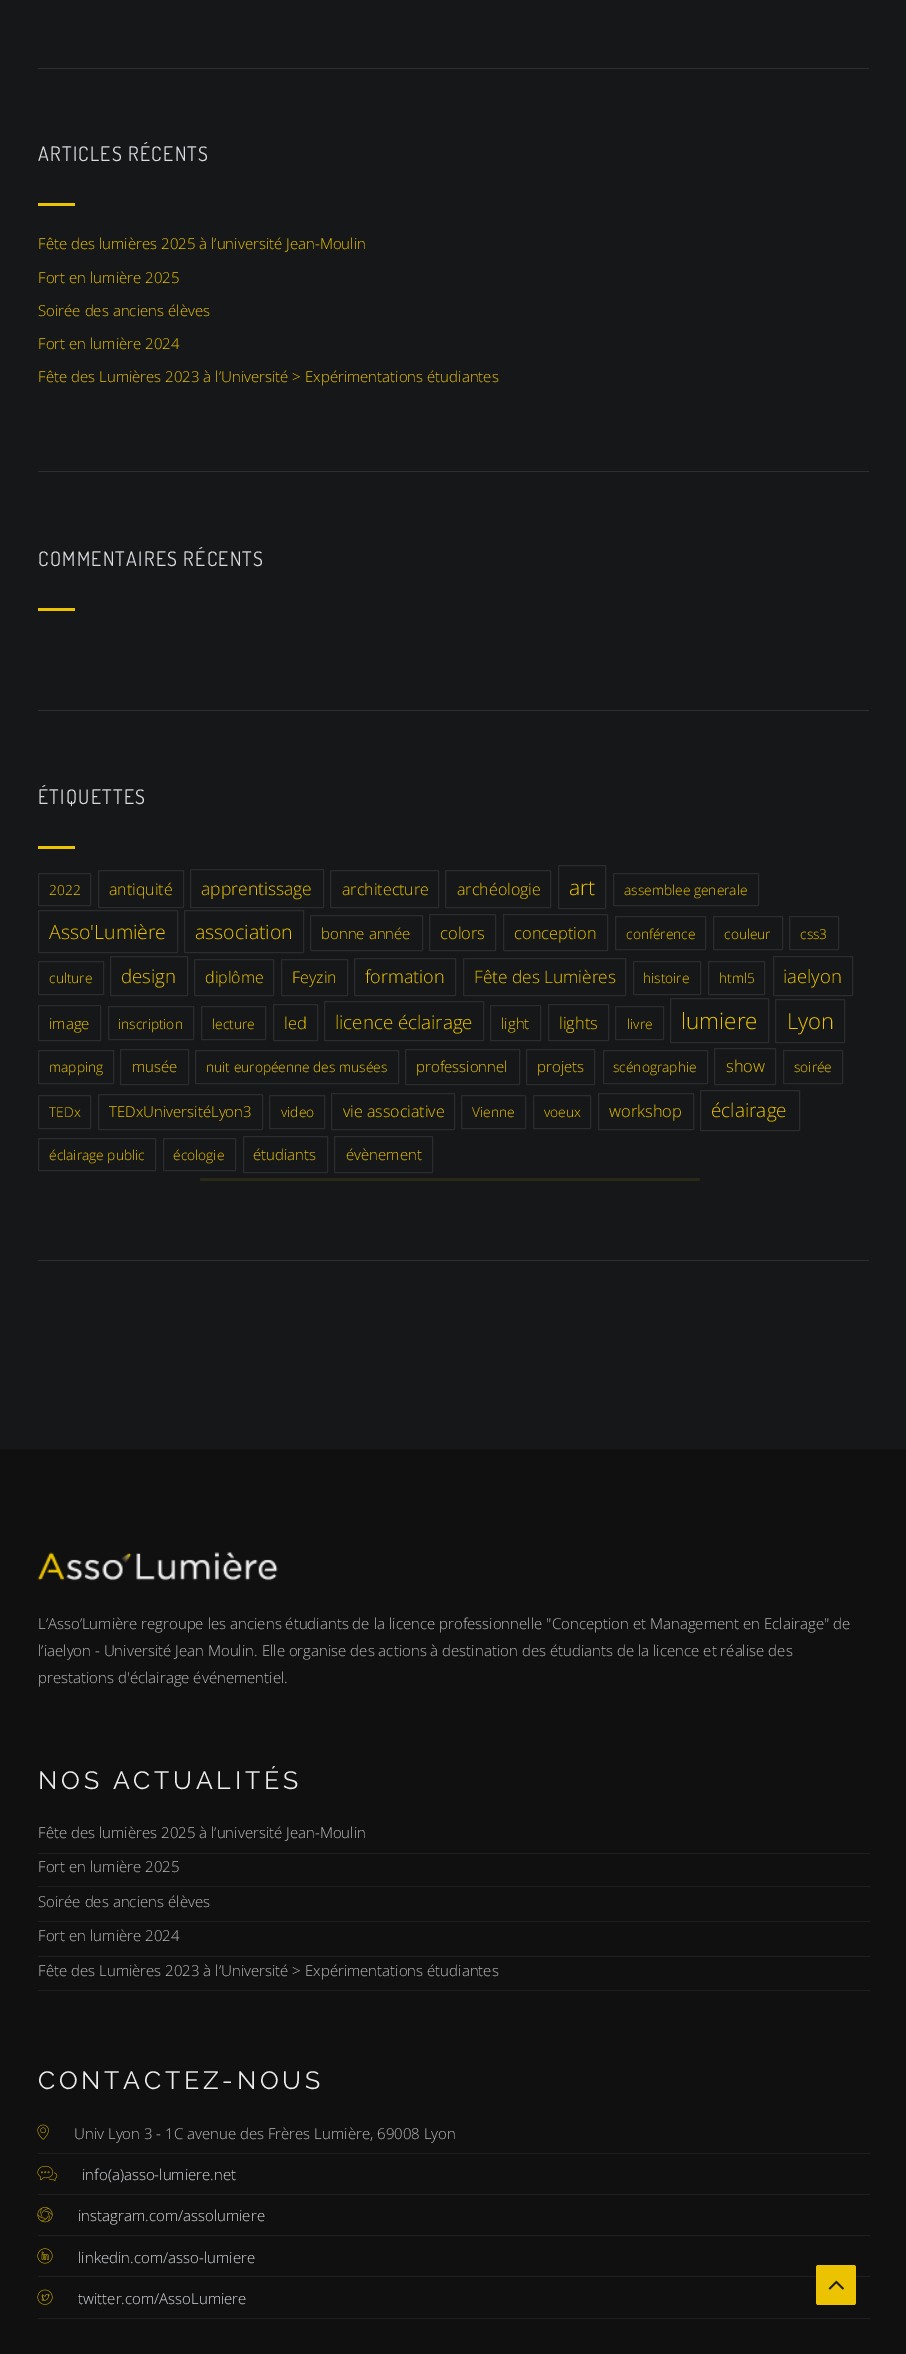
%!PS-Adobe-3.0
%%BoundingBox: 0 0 906 2354
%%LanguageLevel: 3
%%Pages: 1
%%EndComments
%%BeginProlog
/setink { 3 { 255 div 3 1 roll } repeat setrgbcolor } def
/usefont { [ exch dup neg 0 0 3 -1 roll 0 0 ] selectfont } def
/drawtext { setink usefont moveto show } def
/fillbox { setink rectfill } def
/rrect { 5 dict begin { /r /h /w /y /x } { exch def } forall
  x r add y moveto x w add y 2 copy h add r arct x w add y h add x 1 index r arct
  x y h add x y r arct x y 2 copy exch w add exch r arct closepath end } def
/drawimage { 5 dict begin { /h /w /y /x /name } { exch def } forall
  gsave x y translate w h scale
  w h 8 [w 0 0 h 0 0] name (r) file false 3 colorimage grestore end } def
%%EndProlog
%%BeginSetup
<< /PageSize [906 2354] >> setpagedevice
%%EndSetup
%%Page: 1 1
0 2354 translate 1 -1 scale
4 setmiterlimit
0 0 906 2354 22 23 25 fillbox
38 68 831 1 47 47 47 fillbox
38 471 831 1 47 47 47 fillbox
/Dosis-Regular 20 usefont
217 220 224 setink
38 161 moveto 1.25 0 (ARTICLES RÉCENTS) ashow
38 203 37 3 235 195 0 fillbox
(Fête des lumières 2025 à l’université Jean-Moulin) 38 249 /OpenSans-Light 15 235 195 0 drawtext
(Fort en lumière 2025) 38 283 /OpenSans-Light 15 235 195 0 drawtext
(Soirée des anciens élèves) 38 316 /OpenSans-Light 15 235 195 0 drawtext
(Fort en lumière 2024) 38 349 /OpenSans-Light 15 235 195 0 drawtext
(Fête des Lumières 2023 à l’Université > Expérimentations étudiantes) 38 382 /OpenSans-Light 15 235 195 0 drawtext
38 710 831 1 47 47 47 fillbox
/Dosis-Regular 20 usefont
217 220 224 setink
38 566 moveto 1.25 0 (COMMENTAIRES RÉCENTS) ashow
38 608 37 3 235 195 0 fillbox
38 1260 831 1 47 47 47 fillbox
217 220 224 setink
38 804 moveto 1.25 0 (ÉTIQUETTES) ashow
38 846 37 3 235 195 0 fillbox
43 44 46 setink
38.5 873.5 52 32 0.5 rrect stroke
(2022) 49 895 /OpenSans-Light 13.75 235 195 0 drawtext
43 44 46 setink
98.5 870.5 85 37 0.5 rrect stroke
(antiquité) 109 895 /OpenSans-Light 16 235 195 0 drawtext
43 44 46 setink
190.5 869.5 133 38 0.5 rrect stroke
(apprentissage) 201 895 /OpenSans-Light 17.5 235 195 0 drawtext
43 44 46 setink
330.5 870.5 108 37 0.5 rrect stroke
(architecture) 342 895 /OpenSans-Light 16 235 195 0 drawtext
43 44 46 setink
445.5 870.5 105 37 0.5 rrect stroke
(archéologie) 457 895 /OpenSans-Light 16 235 195 0 drawtext
43 44 46 setink
558.5 865.5 47 43 0.5 rrect stroke
(art) 569 895 /OpenSans-Light 21 235 195 0 drawtext
43 44 46 setink
613.5 873.5 145 32 0.5 rrect stroke
(assemblee generale) 624 895 /OpenSans-Light 13.75 235 195 0 drawtext
43 44 46 setink
38.5 910.5 139 42 0.5 rrect stroke
(Asso'Lumière) 49 939 /OpenSans-Light 19.5 235 195 0 drawtext
43 44 46 setink
184.5 910.5 119 42 0.5 rrect stroke
(association) 195 939 /OpenSans-Light 19.5 235 195 0 drawtext
43 44 46 setink
310.5 915.5 112 35 0.5 rrect stroke
(bonne année) 321 939 /OpenSans-Light 15 235 195 0 drawtext
43 44 46 setink
429.5 914.5 66 36 0.5 rrect stroke
(colors) 440 939 /OpenSans-Light 16.5 235 195 0 drawtext
43 44 46 setink
503.5 914.5 104 36 0.5 rrect stroke
(conception) 514 939 /OpenSans-Light 16.5 235 195 0 drawtext
43 44 46 setink
615.5 916.5 90 33 0.5 rrect stroke
(conférence) 626 939 /OpenSans-Light 13.75 235 195 0 drawtext
43 44 46 setink
713.5 916.5 69 33 0.5 rrect stroke
(couleur) 724 939 /OpenSans-Light 13.75 235 195 0 drawtext
43 44 46 setink
789.5 916.5 49 33 0.5 rrect stroke
(css3) 800 939 /OpenSans-Light 13.75 235 195 0 drawtext
43 44 46 setink
38.5 961.5 65 33 0.5 rrect stroke
(culture) 49 983 /OpenSans-Light 13.75 235 195 0 drawtext
43 44 46 setink
110.5 956.5 77 39 0.5 rrect stroke
(design) 121 983 /OpenSans-Light 18.75 235 195 0 drawtext
43 44 46 setink
194.5 959.5 79 36 0.5 rrect stroke
(diplôme) 205 983 /OpenSans-Light 16 235 195 0 drawtext
43 44 46 setink
281.5 959.5 66 36 0.5 rrect stroke
(Feyzin) 292 983 /OpenSans-Light 16 235 195 0 drawtext
43 44 46 setink
354.5 958.5 101 37 0.5 rrect stroke
(formation) 365 983 /OpenSans-Light 18 235 195 0 drawtext
43 44 46 setink
463.5 958.5 162 37 0.5 rrect stroke
(Fête des Lumières) 474 983 /OpenSans-Light 17.25 235 195 0 drawtext
43 44 46 setink
633.5 961.5 67 33 0.5 rrect stroke
(histoire) 643 983 /OpenSans-Light 13.75 235 195 0 drawtext
43 44 46 setink
708.5 961.5 56 33 0.5 rrect stroke
(html5) 719 983 /OpenSans-Light 13.75 235 195 0 drawtext
43 44 46 setink
773.5 956.5 79 39 0.5 rrect stroke
(iaelyon) 783 983 /OpenSans-Light 18.5 235 195 0 drawtext
43 44 46 setink
38.5 1005.5 62 35 0.5 rrect stroke
(image) 49 1029 /OpenSans-Light 15 235 195 0 drawtext
43 44 46 setink
108.5 1006.5 85 33 0.5 rrect stroke
(inscription) 118 1029 /OpenSans-Light 13.75 235 195 0 drawtext
43 44 46 setink
201.5 1006.5 64 33 0.5 rrect stroke
(lecture) 212 1029 /OpenSans-Light 13.75 235 195 0 drawtext
43 44 46 setink
273.5 1004.5 44 36 0.5 rrect stroke
(led) 284 1029 /OpenSans-Light 16.5 235 195 0 drawtext
43 44 46 setink
324.5 1001.5 159 39 0.5 rrect stroke
(licence éclairage) 335 1029 /OpenSans-Light 18.75 235 195 0 drawtext
43 44 46 setink
490.5 1005.5 50 35 0.5 rrect stroke
(light) 501 1029 /OpenSans-Light 15 235 195 0 drawtext
43 44 46 setink
548.5 1004.5 60 36 0.5 rrect stroke
(lights) 559 1029 /OpenSans-Light 16.5 235 195 0 drawtext
43 44 46 setink
615.5 1006.5 48 33 0.5 rrect stroke
(livre) 627 1029 /OpenSans-Light 13.75 235 195 0 drawtext
43 44 46 setink
670.5 998.5 98 44 0.5 rrect stroke
(lumiere) 681 1029 /OpenSans-Light 22.5 235 195 0 drawtext
43 44 46 setink
775.5 999.5 69 43 0.5 rrect stroke
(Lyon) 787 1029 /OpenSans-Light 22 235 195 0 drawtext
43 44 46 setink
38.5 1050.5 75 33 0.5 rrect stroke
(mapping) 49 1072 /OpenSans-Light 13.75 235 195 0 drawtext
43 44 46 setink
120.5 1049.5 68 35 0.5 rrect stroke
(musée) 132 1072 /OpenSans-Light 15 235 195 0 drawtext
43 44 46 setink
195.5 1050.5 203 33 0.5 rrect stroke
(nuit européenne des musées) 206 1072 /OpenSans-Light 13.75 235 195 0 drawtext
43 44 46 setink
405.5 1049.5 114 35 0.5 rrect stroke
(professionnel) 416 1072 /OpenSans-Light 15 235 195 0 drawtext
43 44 46 setink
526.5 1049.5 68 35 0.5 rrect stroke
(projets) 537 1072 /OpenSans-Light 15 235 195 0 drawtext
43 44 46 setink
603.5 1050.5 104 33 0.5 rrect stroke
(scénographie) 613 1072 /OpenSans-Light 13.75 235 195 0 drawtext
43 44 46 setink
714.5 1048.5 61 36 0.5 rrect stroke
(show) 726 1072 /OpenSans-Light 16.5 235 195 0 drawtext
43 44 46 setink
783.5 1050.5 59 33 0.5 rrect stroke
(soirée) 794 1072 /OpenSans-Light 13.75 235 195 0 drawtext
43 44 46 setink
38.5 1095.5 52 33 0.5 rrect stroke
(TEDx) 49 1117 /OpenSans-Light 13.75 235 195 0 drawtext
43 44 46 setink
98.5 1094.5 164 35 0.5 rrect stroke
(TEDxUniversitéLyon3) 109 1117 /OpenSans-Light 15 235 195 0 drawtext
43 44 46 setink
269.5 1095.5 55 33 0.5 rrect stroke
(video) 281 1117 /OpenSans-Light 13.75 235 195 0 drawtext
43 44 46 setink
331.5 1093.5 123 36 0.5 rrect stroke
(vie associative) 343 1117 /OpenSans-Light 16 235 195 0 drawtext
43 44 46 setink
461.5 1095.5 64 33 0.5 rrect stroke
(Vienne) 472 1117 /OpenSans-Light 13.75 235 195 0 drawtext
43 44 46 setink
533.5 1095.5 57 33 0.5 rrect stroke
(voeux) 544 1117 /OpenSans-Light 13.75 235 195 0 drawtext
43 44 46 setink
598.5 1093.5 95 36 0.5 rrect stroke
(workshop) 609 1117 /OpenSans-Light 16.5 235 195 0 drawtext
43 44 46 setink
700.5 1090.5 99 40 0.5 rrect stroke
(éclairage) 711 1117 /OpenSans-Light 19 235 195 0 drawtext
43 44 46 setink
38.5 1138.5 117 32 0.5 rrect stroke
(éclairage public) 49 1160 /OpenSans-Light 13.75 235 195 0 drawtext
43 44 46 setink
163.5 1138.5 72 32 0.5 rrect stroke
(écologie) 173 1160 /OpenSans-Light 13.75 235 195 0 drawtext
43 44 46 setink
243.5 1136.5 84 36 0.5 rrect stroke
(étudiants) 253 1160 /OpenSans-Light 15 235 195 0 drawtext
43 44 46 setink
334.5 1136.5 98 36 0.5 rrect stroke
(évènement) 346 1160 /OpenSans-Light 15 235 195 0 drawtext
0 1449 906 905 16 16 16 fillbox
(assets/img1.rgb) 37 1551 241 30 drawimage
(L’Asso’Lumière regroupe les anciens étudiants de la licence professionnelle "Conception et Management en Eclairage" de) 38 1629 /OpenSans-Light 15 188 188 188 drawtext
(l’iaelyon - Université Jean Moulin. Elle organise des actions à destination des étudiants de la licence et réalise des) 38 1656 /OpenSans-Light 15 188 188 188 drawtext
(prestations d'éclairage événementiel.) 38 1683 /OpenSans-Light 15 188 188 188 drawtext
/Raleway-Thin 25 usefont
235 235 235 setink
38 1789 moveto 3.75 0 (NOS ACTUALITÉS) ashow
38 1853 832 1 31 31 31 fillbox
(Fête des lumières 2025 à l’université Jean-Moulin) 38 1838 /OpenSans-Light 15 188 188 188 drawtext
38 1886 832 1 31 31 31 fillbox
(Fort en lumière 2025) 38 1872 /OpenSans-Light 15 188 188 188 drawtext
38 1921 832 1 31 31 31 fillbox
(Soirée des anciens élèves) 38 1907 /OpenSans-Light 15 188 188 188 drawtext
38 1956 832 1 31 31 31 fillbox
(Fort en lumière 2024) 38 1941 /OpenSans-Light 15 188 188 188 drawtext
38 1990 832 1 31 31 31 fillbox
(Fête des Lumières 2023 à l’Université > Expérimentations étudiantes) 38 1976 /OpenSans-Light 15 188 188 188 drawtext
/Raleway-Thin 25 usefont
235 235 235 setink
38 2089 moveto 3.75 0 (CONTACTEZ-NOUS) ashow
38 2153 832 1 31 31 31 fillbox
(assets/img2.rgb) 37 2124 12 16 drawimage
(Univ Lyon 3 - 1C avenue des Frères Lumière, 69008 Lyon) 74 2139 /OpenSans-Light 15 188 188 188 drawtext
38 2194 832 1 31 31 31 fillbox
(assets/img3.rgb) 37 2165 21 16 drawimage
(info\(a\)asso-lumiere.net) 82 2180 /OpenSans-Light 15 217 220 224 drawtext
38 2235 832 1 31 31 31 fillbox
(assets/img4.rgb) 37 2207 16 16 drawimage
(instagram.com/assolumiere) 78 2221 /OpenSans-Light 15 217 220 224 drawtext
38 2276 832 1 31 31 31 fillbox
(assets/img5.rgb) 37 2248 16 16 drawimage
(linkedin.com/asso-lumiere) 78 2263 /OpenSans-Light 15 217 220 224 drawtext
38 2318 832 1 31 31 31 fillbox
(assets/img6.rgb) 37 2289 16 16 drawimage
(twitter.com/AssoLumiere) 78 2304 /OpenSans-Light 15 217 220 224 drawtext
235 195 0 setink
816 2265 40 40 2.5 rrect fill
(assets/img7.rgb) 828 2280 16 10 drawimage
42 40 25 setink
200 1178 500 3 1.5 rrect fill
showpage
%%EOF
